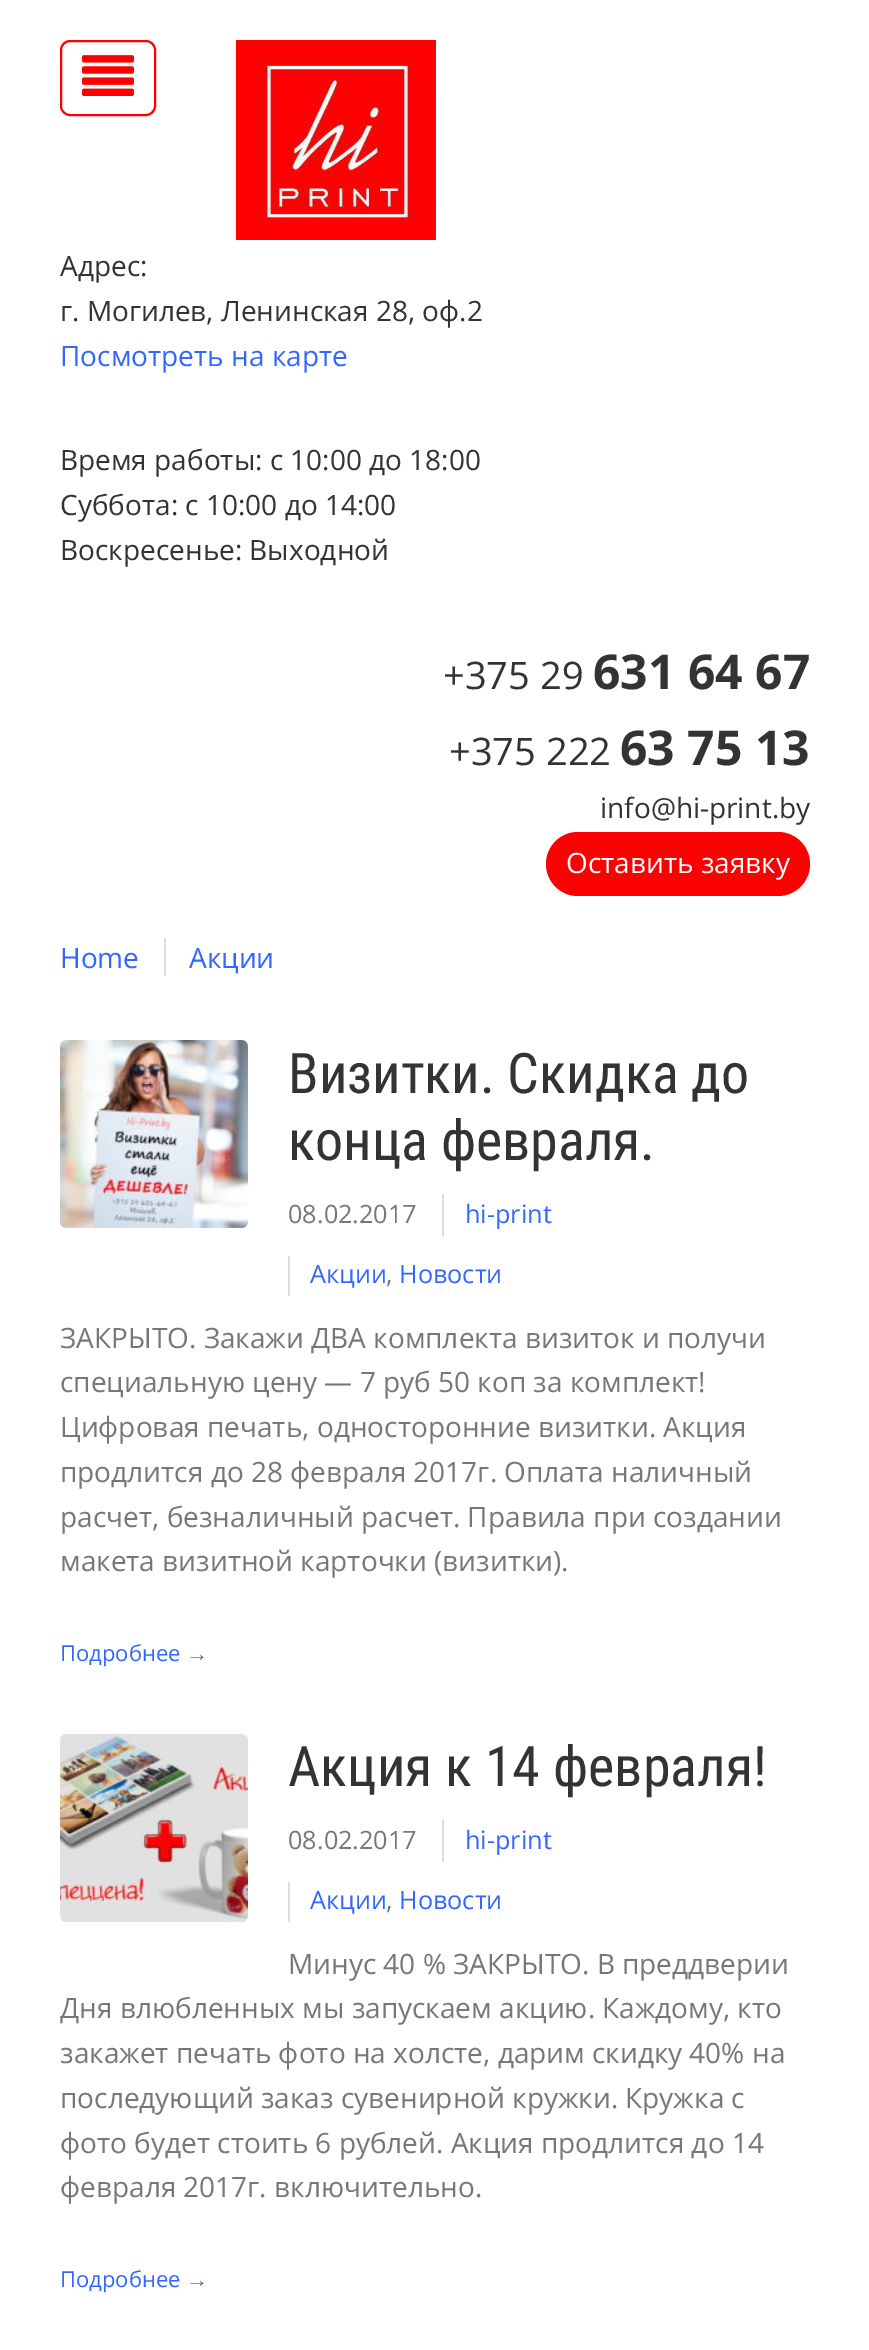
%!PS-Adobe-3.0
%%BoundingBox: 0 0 869 2350
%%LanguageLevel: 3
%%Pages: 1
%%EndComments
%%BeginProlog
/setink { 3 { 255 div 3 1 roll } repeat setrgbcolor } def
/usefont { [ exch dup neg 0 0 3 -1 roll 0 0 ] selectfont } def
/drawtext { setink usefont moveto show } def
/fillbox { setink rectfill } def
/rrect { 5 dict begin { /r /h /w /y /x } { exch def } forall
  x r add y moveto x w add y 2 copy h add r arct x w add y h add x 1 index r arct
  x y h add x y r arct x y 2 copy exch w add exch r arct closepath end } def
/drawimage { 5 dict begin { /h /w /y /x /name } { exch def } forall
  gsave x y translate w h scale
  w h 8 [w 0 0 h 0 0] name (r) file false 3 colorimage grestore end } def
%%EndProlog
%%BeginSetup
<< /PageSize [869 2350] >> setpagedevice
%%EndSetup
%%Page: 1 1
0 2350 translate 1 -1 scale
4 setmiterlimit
0 0 869 2350 255 255 255 fillbox
253 1 0 setink
2 setlinewidth
61 41 94 74 9 rrect stroke
(assets/img1.rgb) 82 55 52 41 drawimage
(assets/img2.rgb) 236 40 200 200 drawimage
(Адрес:) 60 276 /OpenSans-Regular 28 51 51 51 drawtext
(г. Могилев, Ленинская 28, оф.2) 60 321 /OpenSans-Regular 28 51 51 51 drawtext
(Посмотреть на карте) 60 366 /OpenSans-Regular 28 51 102 255 drawtext
(Время работы: с 10:00 до 18:00) 60 470 /OpenSans-Regular 28 51 51 51 drawtext
(Суббота: с 10:00 до 14:00) 60 515 /OpenSans-Regular 28 51 51 51 drawtext
(Воскресенье: Выходной) 60 560 /OpenSans-Regular 28 51 51 51 drawtext
(+375 29) 443 689 /OpenSans-Regular 38 51 51 51 drawtext
(631 64 67) 593 689 /OpenSans-Bold 48 51 51 51 drawtext
(+375 222) 449 765 /OpenSans-Regular 38 51 51 51 drawtext
(63 75 13) 620 765 /OpenSans-Bold 48 51 51 51 drawtext
(info@hi-print.by) 600 818 /OpenSans-Regular 28 51 51 51 drawtext
250 2 2 setink
546 832 264 64 32 rrect fill
(Оставить заявку) 566 873 /OpenSans-Regular 28 255 255 255 drawtext
(Home) 60 968 /OpenSans-Regular 28 51 102 255 drawtext
164 938 2 38 221 221 221 fillbox
(Акции) 189 968 /OpenSans-Regular 28 51 102 255 drawtext
(assets/img3.rgb) 60 1040 188 188 drawimage
(Визитки. Скидка до) 288 1093 /RobotoCondensed-Regular 56 51 51 51 drawtext
(конца февраля.) 288 1160 /RobotoCondensed-Regular 56 51 51 51 drawtext
(08.02.2017) 288 1223 /OpenSans-Regular 25.25 119 119 119 drawtext
442 1194 2 42 221 221 221 fillbox
(hi-print) 465 1223 /OpenSans-Regular 25.25 51 102 255 drawtext
288 1256 2 40 221 221 221 fillbox
(Акции) 310 1283 /OpenSans-Regular 25.25 51 102 255 drawtext
(,) 386 1283 /OpenSans-Regular 25.25 119 119 119 drawtext
(Новости) 399 1283 /OpenSans-Regular 25.25 51 102 255 drawtext
(ЗАКРЫТО. Закажи ДВА комплекта визиток и получи) 60 1348 /OpenSans-Regular 28 119 119 119 drawtext
(специальную цену — 7 руб 50 коп за комплект!) 60 1392 /OpenSans-Regular 28 119 119 119 drawtext
(Цифровая печать, односторонние визитки. Акция) 60 1437 /OpenSans-Regular 28 119 119 119 drawtext
(продлится до 28 февраля 2017г. Оплата наличный) 60 1482 /OpenSans-Regular 28 119 119 119 drawtext
(расчет, безналичный расчет. Правила при создании) 60 1527 /OpenSans-Regular 28 119 119 119 drawtext
(макета визитной карточки \(визитки\).) 60 1571 /OpenSans-Regular 28 119 119 119 drawtext
(Подробнее) 60 1661 /OpenSans-Regular 22 51 102 255 drawtext
(→) 186 1661 /LiberationSans-Regular 22 51 102 255 drawtext
(assets/img4.rgb) 60 1734 188 188 drawimage
(Акция к 14 февраля!) 288 1786 /RobotoCondensed-Regular 56 51 51 51 drawtext
(08.02.2017) 288 1849 /OpenSans-Regular 25.25 119 119 119 drawtext
442 1820 2 42 221 221 221 fillbox
(hi-print) 465 1849 /OpenSans-Regular 25.25 51 102 255 drawtext
288 1882 2 40 221 221 221 fillbox
(Акции) 310 1909 /OpenSans-Regular 25.25 51 102 255 drawtext
(,) 386 1909 /OpenSans-Regular 25.25 119 119 119 drawtext
(Новости) 399 1909 /OpenSans-Regular 25.25 51 102 255 drawtext
(Минус 40 % ЗАКРЫТО. В преддверии) 288 1974 /OpenSans-Regular 28 119 119 119 drawtext
(Дня влюбленных мы запускаем акцию. Каждому, кто) 60 2018 /OpenSans-Regular 28 119 119 119 drawtext
(закажет печать фото на холсте, дарим скидку 40% на) 60 2063 /OpenSans-Regular 28 119 119 119 drawtext
(последующий заказ сувенирной кружки. Кружка с) 60 2108 /OpenSans-Regular 28 119 119 119 drawtext
(фото будет стоить 6 рублей. Акция продлится до 14) 60 2153 /OpenSans-Regular 28 119 119 119 drawtext
(февраля 2017г. включительно.) 60 2197 /OpenSans-Regular 28 119 119 119 drawtext
(Подробнее) 60 2287 /OpenSans-Regular 22 51 102 255 drawtext
(→) 186 2287 /LiberationSans-Regular 22 51 102 255 drawtext
showpage
%%EOF
